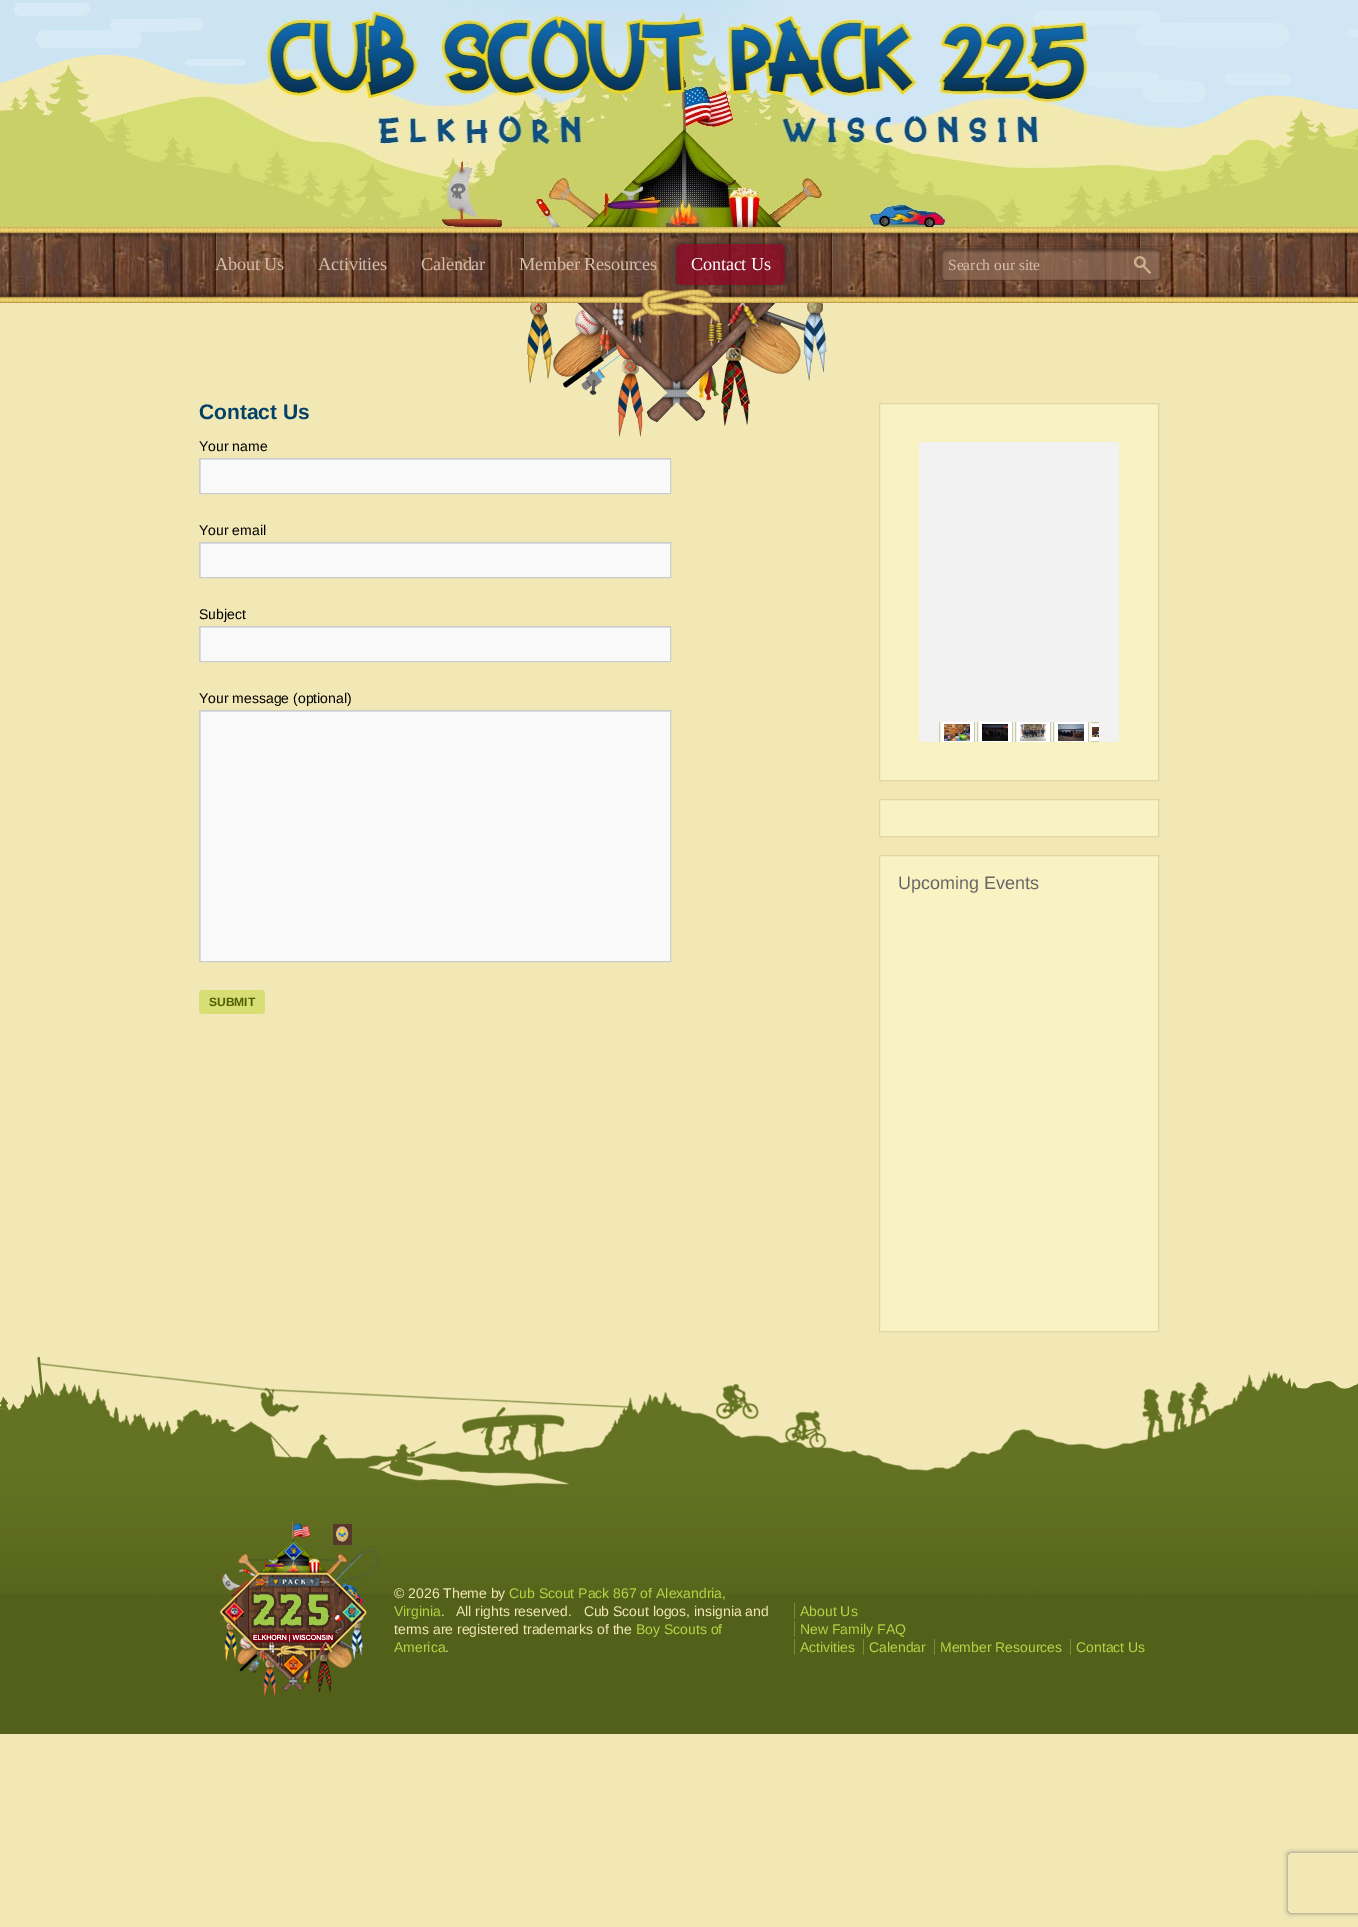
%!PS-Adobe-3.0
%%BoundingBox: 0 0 1358 1927
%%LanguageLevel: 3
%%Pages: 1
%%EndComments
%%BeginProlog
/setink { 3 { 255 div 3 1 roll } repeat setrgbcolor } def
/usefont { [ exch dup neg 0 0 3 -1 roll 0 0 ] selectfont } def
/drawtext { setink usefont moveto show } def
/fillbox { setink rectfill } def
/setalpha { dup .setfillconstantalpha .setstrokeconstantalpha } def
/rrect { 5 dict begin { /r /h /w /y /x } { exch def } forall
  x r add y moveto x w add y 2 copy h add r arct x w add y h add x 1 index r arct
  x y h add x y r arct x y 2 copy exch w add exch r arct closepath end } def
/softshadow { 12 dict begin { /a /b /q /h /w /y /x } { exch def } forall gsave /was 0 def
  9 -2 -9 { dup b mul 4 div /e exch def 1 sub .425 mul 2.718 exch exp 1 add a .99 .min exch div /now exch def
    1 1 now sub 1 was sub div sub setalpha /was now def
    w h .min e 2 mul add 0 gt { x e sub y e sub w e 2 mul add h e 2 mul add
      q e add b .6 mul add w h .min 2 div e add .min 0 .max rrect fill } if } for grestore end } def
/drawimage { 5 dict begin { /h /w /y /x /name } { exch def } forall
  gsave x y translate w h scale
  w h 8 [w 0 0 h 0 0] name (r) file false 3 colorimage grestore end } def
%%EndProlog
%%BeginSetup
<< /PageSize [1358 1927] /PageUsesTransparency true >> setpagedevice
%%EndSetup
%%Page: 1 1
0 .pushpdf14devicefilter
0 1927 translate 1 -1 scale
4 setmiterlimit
0 0 1358 1927 242 232 181 fillbox
(assets/img1.rgb) 0 0 1358 227 drawimage
(assets/img2.rgb) 179 0 1000 227 drawimage
(assets/img4.rgb) 0 227 1358 76 drawimage
(assets/img7.rgb) 520 303 312 136 drawimage
(assets/img3.rgb) 630 288 90 34 drawimage
/LiberationSerif-Regular 18.25 usefont
214 190 172 setink
215 270 moveto -0.2 0 (About Us) ashow
318 270 moveto -0.2 0 (Activities) ashow
421 270 moveto -0.2 0 (Calendar) ashow
519 270 moveto -0.2 0 (Member Resources) ashow
gsave
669 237 moveto 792 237 lineto 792 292 lineto 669 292 lineto closepath 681 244 moveto 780 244 lineto 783 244 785 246 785 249 curveto 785 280 lineto 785 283 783 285 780 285 curveto 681 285 lineto 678 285 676 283 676 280 curveto 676 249 lineto 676 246 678 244 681 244 curveto closepath eoclip newpath
51 51 51 setink
676 244 109 41 5 2 1 softshadow
grestore
(assets/img5.rgb) 676 244 109 41 drawimage
255 255 255 setink
691 270 moveto -0.2 0 (Contact Us) ashow
(assets/img6.rgb) 940 248 221 33 drawimage
gsave
938 246 234 37 rectclip
0.1 setalpha
0 0 0 setink
839 147 moveto 1271 147 lineto 1271 382 lineto 839 382 lineto closepath 939 247 moveto 1173 247 lineto 1173 284 lineto 939 284 lineto closepath eofill
grestore
(Search our site) 948 270 /LiberationSerif-Regular 15.5 214 190 172 drawtext
(Contact Us) 199 419 /LiberationSans-Bold 21 3 65 104 drawtext
(Your name) 199 451 /LiberationSans-Regular 14 0 0 0 drawtext
201 460 469 33 249 249 249 fillbox
gsave
200 459 470 34 rectclip
224 224 224 setink
101 360 moveto 769 360 lineto 769 592 lineto 101 592 lineto closepath 201 460 moveto 671 460 lineto 671 494 lineto 201 494 lineto closepath eofill
grestore
204 204 204 setink
199.5 458.5 471 35 rectstroke
(Your email) 199 535 /LiberationSans-Regular 14 0 0 0 drawtext
201 544 469 33 249 249 249 fillbox
gsave
200 543 470 34 rectclip
224 224 224 setink
101 444 moveto 769 444 lineto 769 676 lineto 101 676 lineto closepath 201 544 moveto 671 544 lineto 671 578 lineto 201 578 lineto closepath eofill
grestore
204 204 204 setink
199.5 542.5 471 35 rectstroke
(Subject) 199 619 /LiberationSans-Regular 14 0 0 0 drawtext
201 628 469 33 249 249 249 fillbox
gsave
200 627 470 34 rectclip
224 224 224 setink
101 528 moveto 769 528 lineto 769 760 lineto 101 760 lineto closepath 201 628 moveto 671 628 lineto 671 662 lineto 201 662 lineto closepath eofill
grestore
204 204 204 setink
199.5 626.5 471 35 rectstroke
(Your message \(optional\)) 199 703 /LiberationSans-Regular 14 0 0 0 drawtext
201 712 469 249 249 249 249 fillbox
gsave
200 711 470 250 rectclip
224 224 224 setink
101 612 moveto 769 612 lineto 769 1060 lineto 101 1060 lineto closepath 201 712 moveto 671 712 lineto 671 962 lineto 201 962 lineto closepath eofill
grestore
204 204 204 setink
199.5 710.5 471 251 rectstroke
215 222 116 setink
199 990 66 24 4 rrect fill
(SUBMIT) 209 1006 /LiberationSans-Bold 12 79 96 0 drawtext
249 243 196 setink
879.5 403.5 moveto 1158.5 403.5 lineto 1158.5 780.5 lineto 879.5 780.5 lineto closepath gsave fill grestore
224 214 163 setink
stroke
919 442 200 300 242 242 242 fillbox
940 722 34 20 255 255 255 fillbox
gsave
939 722 36 20 rectclip
208 201 165 setink
939.5 719.5 35 26 rectstroke
grestore
(assets/img8.rgb) 944 724 26 17 drawimage
978 722 34 20 255 255 255 fillbox
gsave
977 722 36 20 rectclip
208 201 165 setink
977.5 719.5 35 26 rectstroke
grestore
(assets/img9.rgb) 982 724 26 17 drawimage
1016 722 34 20 255 255 255 fillbox
gsave
1015 722 36 20 rectclip
208 201 165 setink
1015.5 719.5 35 26 rectstroke
grestore
(assets/img10.rgb) 1020 724 26 17 drawimage
1054 722 34 20 255 255 255 fillbox
gsave
1053 722 36 20 rectclip
208 201 165 setink
1053.5 719.5 35 26 rectstroke
grestore
(assets/img11.rgb) 1058 724 26 17 drawimage
1091 722 8 20 255 255 255 fillbox
gsave
1091 722 8 20 rectclip
208 201 165 setink
1087.5 722.5 43 19 rectstroke
grestore
(assets/img12.rgb) 1092 727 7 10 drawimage
249 243 196 setink
879.5 799.5 moveto 1158.5 799.5 lineto 1158.5 836.5 lineto 879.5 836.5 lineto closepath gsave fill grestore
224 214 163 setink
stroke
249 243 196 setink
879.5 855.5 moveto 1158.5 855.5 lineto 1158.5 1331.5 lineto 879.5 1331.5 lineto closepath gsave fill grestore
224 214 163 setink
stroke
(Upcoming Events) 898 889 /LiberationSans-Regular 18 102 102 102 drawtext
0 1594 1358 140 83 96 26 fillbox
(assets/img13.rgb) 0 1350 1358 244 drawimage
(assets/img14.rgb) 218 1522 161 174 drawimage
(© 2026 Theme by) 394 1598 /LiberationSans-Regular 14 242 232 181 drawtext
(Cub Scout Pack 867 of Alexandria,) 509 1598 /LiberationSans-Regular 14 184 210 68 drawtext
(Virginia) 394 1616 /LiberationSans-Regular 14 184 210 68 drawtext
(.) 441 1616 /LiberationSans-Regular 14 242 232 181 drawtext
(All rights reserved.   Cub Scout logos, insignia and) 456 1616 /LiberationSans-Regular 14 242 232 181 drawtext
(terms are registered trademarks of the) 394 1634 /LiberationSans-Regular 14 242 232 181 drawtext
(Boy Scouts of) 636 1634 /LiberationSans-Regular 14 184 210 68 drawtext
(America) 394 1652 /LiberationSans-Regular 14 184 210 68 drawtext
(.) 445 1652 /LiberationSans-Regular 14 242 232 181 drawtext
(About Us) 800 1616 /LiberationSans-Regular 14 184 210 68 drawtext
794 1603 1 16 123 141 43 fillbox
(New Family FAQ) 800 1634 /LiberationSans-Regular 14 184 210 68 drawtext
794 1621 1 16 123 141 43 fillbox
(Activities) 800 1652 /LiberationSans-Regular 14 184 210 68 drawtext
794 1639 1 16 123 141 43 fillbox
(Calendar) 869 1652 /LiberationSans-Regular 14 184 210 68 drawtext
863 1639 1 16 123 141 43 fillbox
(Member Resources) 940 1652 /LiberationSans-Regular 14 184 210 68 drawtext
934 1639 1 16 123 141 43 fillbox
(Contact Us) 1076 1652 /LiberationSans-Regular 14 184 210 68 drawtext
1070 1639 1 16 123 141 43 fillbox
gsave
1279 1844 moveto 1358 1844 lineto 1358 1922 lineto 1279 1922 lineto closepath 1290 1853 moveto 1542 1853 lineto 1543 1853 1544 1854 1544 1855 curveto 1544 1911 lineto 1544 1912 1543 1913 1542 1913 curveto 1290 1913 lineto 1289 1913 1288 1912 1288 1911 curveto 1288 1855 lineto 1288 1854 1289 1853 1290 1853 curveto closepath eoclip newpath
128 128 128 setink
1288 1853 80 60 2 2.5 1 softshadow
grestore
.poppdf14devicefilter showpage
%%EOF
